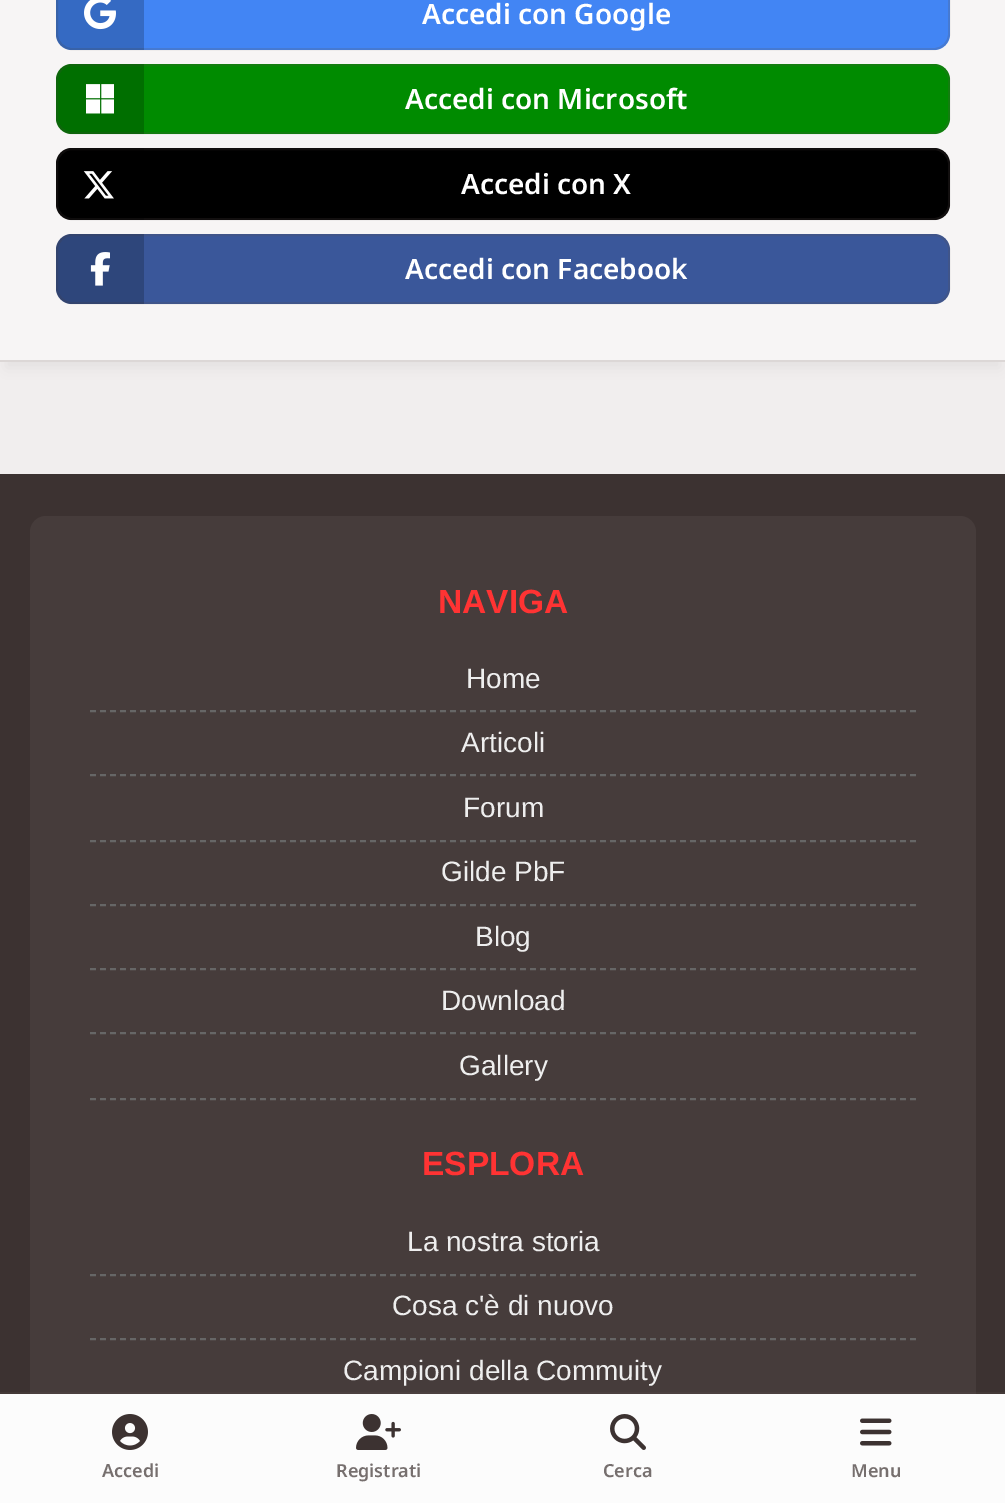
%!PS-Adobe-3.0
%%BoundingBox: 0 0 1005 1503
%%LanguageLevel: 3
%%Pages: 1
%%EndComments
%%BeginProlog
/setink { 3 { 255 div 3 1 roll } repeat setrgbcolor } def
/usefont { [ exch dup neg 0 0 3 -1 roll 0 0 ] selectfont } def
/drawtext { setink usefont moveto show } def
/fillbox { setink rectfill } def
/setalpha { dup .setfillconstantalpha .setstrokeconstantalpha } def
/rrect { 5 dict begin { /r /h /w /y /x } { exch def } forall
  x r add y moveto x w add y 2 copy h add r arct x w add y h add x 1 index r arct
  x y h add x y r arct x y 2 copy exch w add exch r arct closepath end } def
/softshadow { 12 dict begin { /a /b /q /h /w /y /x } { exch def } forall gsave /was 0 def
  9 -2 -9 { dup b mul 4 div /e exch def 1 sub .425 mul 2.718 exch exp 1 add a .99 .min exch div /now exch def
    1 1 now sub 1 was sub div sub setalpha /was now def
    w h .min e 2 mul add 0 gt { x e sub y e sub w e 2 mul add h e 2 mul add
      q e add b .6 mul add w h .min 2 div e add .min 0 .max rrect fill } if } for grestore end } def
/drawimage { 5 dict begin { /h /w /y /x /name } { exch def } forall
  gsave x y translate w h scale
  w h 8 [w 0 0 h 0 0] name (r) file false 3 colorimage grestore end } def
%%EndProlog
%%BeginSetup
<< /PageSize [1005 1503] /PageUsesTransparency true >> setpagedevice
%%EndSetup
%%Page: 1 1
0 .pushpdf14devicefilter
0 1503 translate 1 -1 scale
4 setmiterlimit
0 0 1005 1503 241 238 238 fillbox
5 3 3 setink
6 -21 994 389 0 7 0.05 softshadow
0 360 1005 2 220 215 214 fillbox
0 0 1005 360 247 245 245 fillbox
66 133 244 setink
56 -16 894 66 16 rrect fill
0.2 setalpha
88 76 74 setink
2 setlinewidth
57 -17 892 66 15 rrect stroke
0 0 0 setink
72 -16 moveto 144 -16 lineto 144 50 lineto 72 50 lineto 63 50 56 43 56 34 curveto 56 0 lineto 56 -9 63 -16 72 -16 curveto closepath fill
1 setalpha
(assets/img1.rgb) 84 0 32 30 drawimage
(Accedi con Google) 422 24 /NotoSans-SemiBold 28 255 255 255 drawtext
0 139 0 setink
56 64 894 70 16 rrect fill
0.2 setalpha
88 76 74 setink
57 65 892 68 15 rrect stroke
0 0 0 setink
72 64 moveto 144 64 lineto 144 134 lineto 72 134 lineto 63 134 56 127 56 118 curveto 56 80 lineto 56 71 63 64 72 64 curveto closepath fill
1 setalpha
(assets/img2.rgb) 86 84 28 30 drawimage
(Accedi con Microsoft) 405 109 /NotoSans-SemiBold 28 255 255 255 drawtext
0 0 0 setink
56 148 894 72 16 rrect fill
0.2 setalpha
88 76 74 setink
57 149 892 70 15 rrect stroke
0 0 0 setink
72 148 moveto 144 148 lineto 144 220 lineto 72 220 lineto 63 220 56 213 56 204 curveto 56 164 lineto 56 155 63 148 72 148 curveto closepath fill
1 setalpha
(assets/img3.rgb) 83 171 31 28 drawimage
(Accedi con X) 461 194 /NotoSans-SemiBold 28 255 255 255 drawtext
58 87 154 setink
56 234 894 70 16 rrect fill
0.2 setalpha
88 76 74 setink
57 235 892 68 15 rrect stroke
0 0 0 setink
72 234 moveto 144 234 lineto 144 304 lineto 72 304 lineto 63 304 56 297 56 288 curveto 56 250 lineto 56 241 63 234 72 234 curveto closepath fill
1 setalpha
(assets/img4.rgb) 90 252 20 34 drawimage
(Accedi con Facebook) 405 279 /NotoSans-SemiBold 28 255 255 255 drawtext
0 474 1005 918 60 50 49 fillbox
0 1392 1005 2 67 57 55 fillbox
70 60 59 setink
30 516 946 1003 16 rrect fill
30 1392 946 2 75 64 63 fillbox
(NAVIGA) 438 613 /LiberationSans-Bold 33.5 255 51 51 drawtext
102 102 102 setink
[6 4] 0 setdash
90 711 moveto 916 711 lineto stroke
(Home) 466 688 /LiberationSans-Regular 28 238 238 238 drawtext
102 102 102 setink
90 775 moveto 916 775 lineto stroke
(Articoli) 461 752 /LiberationSans-Regular 28 238 238 238 drawtext
102 102 102 setink
90 841 moveto 916 841 lineto stroke
(Forum) 463 817 /LiberationSans-Regular 28 238 238 238 drawtext
102 102 102 setink
90 905 moveto 916 905 lineto stroke
(Gilde PbF) 441 881 /LiberationSans-Regular 28 238 238 238 drawtext
102 102 102 setink
90 969 moveto 916 969 lineto stroke
(Blog) 475 946 /LiberationSans-Regular 28 238 238 238 drawtext
102 102 102 setink
90 1033 moveto 916 1033 lineto stroke
(Download) 441 1010 /LiberationSans-Regular 28 238 238 238 drawtext
102 102 102 setink
90 1099 moveto 916 1099 lineto stroke
(Gallery) 459 1075 /LiberationSans-Regular 28 238 238 238 drawtext
(ESPLORA) 422 1175 /LiberationSans-Bold 33.5 255 51 51 drawtext
102 102 102 setink
90 1275 moveto 916 1275 lineto stroke
(La nostra storia) 407 1251 /LiberationSans-Regular 28 238 238 238 drawtext
102 102 102 setink
90 1339 moveto 916 1339 lineto stroke
(Cosa c'è di nuovo) 392 1315 /LiberationSans-Regular 28 238 238 238 drawtext
(Campioni della Commuity) 343 1380 /LiberationSans-Regular 28 238 238 238 drawtext
0 1394 1005 109 252 252 252 fillbox
(assets/img5.rgb) 112 1414 36 36 drawimage
(Accedi) 102 1477 /NotoSans-SemiBold 18 118 111 110 drawtext
(assets/img6.rgb) 356 1414 45 36 drawimage
(Registrati) 336 1477 /NotoSans-SemiBold 18 118 111 110 drawtext
(assets/img7.rgb) 610 1414 36 36 drawimage
(Cerca) 603 1477 /NotoSans-SemiBold 18 118 111 110 drawtext
(assets/img8.rgb) 860 1418 32 28 drawimage
(Menu) 851 1477 /NotoSans-SemiBold 18 118 111 110 drawtext
.poppdf14devicefilter showpage
%%EOF
